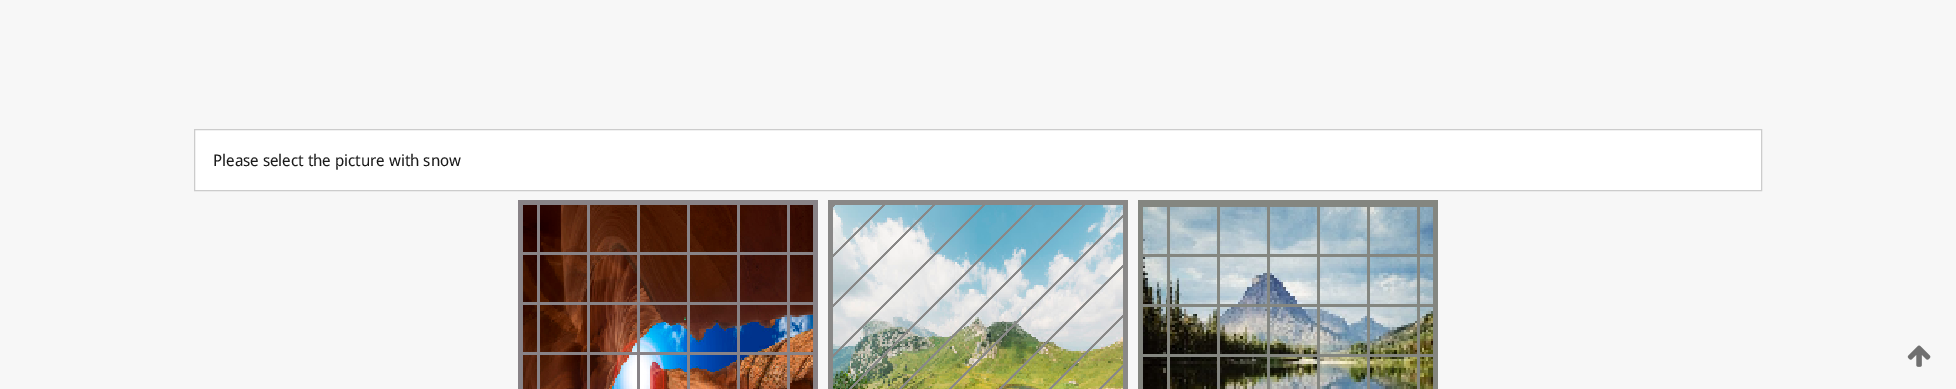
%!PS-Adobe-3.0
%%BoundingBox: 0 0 1956 389
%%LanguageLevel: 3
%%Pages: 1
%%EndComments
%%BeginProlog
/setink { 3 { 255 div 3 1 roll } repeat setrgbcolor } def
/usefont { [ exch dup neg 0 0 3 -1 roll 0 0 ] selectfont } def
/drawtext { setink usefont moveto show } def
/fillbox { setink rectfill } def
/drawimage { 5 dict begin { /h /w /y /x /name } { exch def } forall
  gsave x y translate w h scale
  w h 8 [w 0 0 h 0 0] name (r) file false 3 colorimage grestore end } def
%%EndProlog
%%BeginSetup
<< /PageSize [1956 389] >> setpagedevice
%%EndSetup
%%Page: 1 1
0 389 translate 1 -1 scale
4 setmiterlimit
0 0 1956 389 247 247 247 fillbox
255 255 255 setink
194.5 129.5 moveto 1761.5 129.5 lineto 1761.5 190.5 lineto 194.5 190.5 lineto closepath gsave fill grestore
204 204 204 setink
stroke
(Please select the picture with snow) 213 166 /NotoSansDisplay-Regular 16 26 26 26 drawtext
(assets/img1.rgb) 518 200 300 189 drawimage
(assets/img2.rgb) 828 200 300 189 drawimage
(assets/img3.rgb) 1138 200 300 189 drawimage
(assets/img4.rgb) 1907 345 24 22 drawimage
showpage
%%EOF
